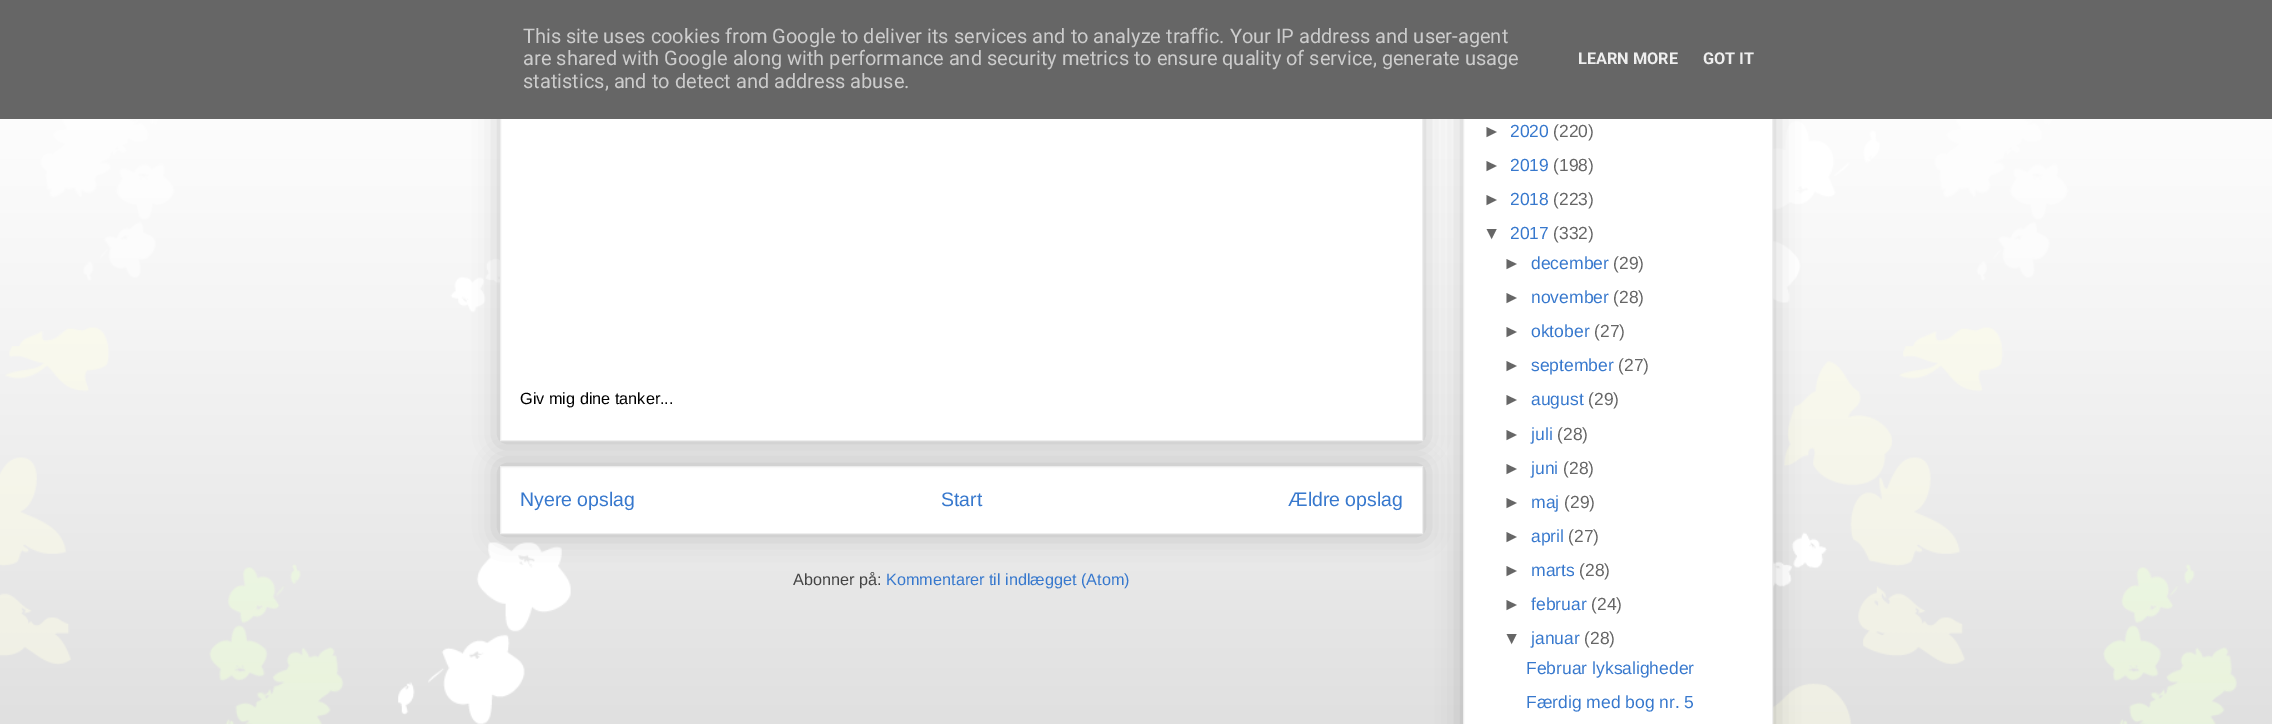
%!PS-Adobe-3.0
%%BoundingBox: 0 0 2272 724
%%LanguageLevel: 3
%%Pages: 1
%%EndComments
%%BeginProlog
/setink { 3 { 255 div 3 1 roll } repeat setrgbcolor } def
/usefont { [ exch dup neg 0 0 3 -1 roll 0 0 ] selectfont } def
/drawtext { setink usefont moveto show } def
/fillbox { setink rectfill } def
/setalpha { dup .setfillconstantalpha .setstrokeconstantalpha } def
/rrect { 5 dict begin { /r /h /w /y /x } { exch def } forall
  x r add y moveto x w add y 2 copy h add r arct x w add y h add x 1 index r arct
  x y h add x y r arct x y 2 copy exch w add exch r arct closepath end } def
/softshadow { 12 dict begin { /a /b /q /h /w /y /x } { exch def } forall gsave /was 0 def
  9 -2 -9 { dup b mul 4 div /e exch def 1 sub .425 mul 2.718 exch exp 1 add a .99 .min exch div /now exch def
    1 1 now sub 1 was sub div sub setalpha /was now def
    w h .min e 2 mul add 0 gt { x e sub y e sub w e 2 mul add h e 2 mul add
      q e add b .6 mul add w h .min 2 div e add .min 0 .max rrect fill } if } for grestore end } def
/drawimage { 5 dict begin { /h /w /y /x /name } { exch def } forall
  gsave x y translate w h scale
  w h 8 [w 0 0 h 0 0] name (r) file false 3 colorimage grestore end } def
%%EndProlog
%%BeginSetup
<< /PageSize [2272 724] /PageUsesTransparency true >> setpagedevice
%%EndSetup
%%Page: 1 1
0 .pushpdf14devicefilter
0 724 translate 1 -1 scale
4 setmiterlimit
0 0 2272 724 204 204 204 fillbox
(assets/img1.rgb) 0 119 2272 605 drawimage
0 0 0 setink
500 466 923 68 0 12.5 0.2 softshadow
255 255 255 setink
500.5 466.5 moveto 1422.5 466.5 lineto 1422.5 533.5 lineto 500.5 533.5 lineto closepath gsave fill grestore
238 238 238 setink
stroke
0 0 0 setink
500 -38 923 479 0 12.5 0.2 softshadow
501 119 921 321 255 255 255 fillbox
238 238 238 setink
500.5 -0.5 922 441 rectstroke
0 0 0 setink
1463 36 310 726 0 12.5 0.2 softshadow
1464 119 308 605 255 255 255 fillbox
238 238 238 setink
1463.5 36.5 309 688 rectstroke
0 0 2272 119 102 102 102 fillbox
(This site uses cookies from Google to deliver its services and to analyze traffic. Your IP address and user-agent) 523 43 /Roboto-Regular 20 204 204 204 drawtext
(are shared with Google along with performance and security metrics to ensure quality of service, generate usage) 523 65 /Roboto-Regular 20 204 204 204 drawtext
(statistics, and to detect and address abuse.) 523 88 /Roboto-Regular 20 204 204 204 drawtext
(LEARN MORE) 1578 64 /Roboto-Bold 16.25 238 238 238 drawtext
(GOT IT) 1703 64 /Roboto-Bold 16.25 238 238 238 drawtext
(Giv mig dine tanker...) 520 404 /LiberationSans-Regular 16.25 0 0 0 drawtext
(Nyere opslag) 520 506 /LiberationSans-Regular 19.5 55 120 205 drawtext
(Start) 941 506 /LiberationSans-Regular 19.5 55 120 205 drawtext
(Ældre opslag) 1288 506 /LiberationSans-Regular 19.5 55 120 205 drawtext
(Abonner på:) 793 585 /LiberationSans-Regular 16.25 68 68 68 drawtext
(Kommentarer til indlægget \(Atom\)) 886 585 /LiberationSans-Regular 16.25 55 120 205 drawtext
(►) 1483 137 /LiberationSans-Regular 17.5 102 102 102 drawtext
(2020) 1510 137 /LiberationSans-Regular 17.5 55 120 205 drawtext
(\(220\)) 1553 137 /LiberationSans-Regular 17.5 102 102 102 drawtext
(►) 1483 171 /LiberationSans-Regular 17.5 102 102 102 drawtext
(2019) 1510 171 /LiberationSans-Regular 17.5 55 120 205 drawtext
(\(198\)) 1553 171 /LiberationSans-Regular 17.5 102 102 102 drawtext
(►) 1483 205 /LiberationSans-Regular 17.5 102 102 102 drawtext
(2018) 1510 205 /LiberationSans-Regular 17.5 55 120 205 drawtext
(\(223\)) 1553 205 /LiberationSans-Regular 17.5 102 102 102 drawtext
(▼) 1483 239 /LiberationSans-Regular 17.5 102 102 102 drawtext
(2017) 1510 239 /LiberationSans-Regular 17.5 55 120 205 drawtext
(\(332\)) 1553 239 /LiberationSans-Regular 17.5 102 102 102 drawtext
(►) 1503 269 /LiberationSans-Regular 17.5 102 102 102 drawtext
(december) 1531 269 /LiberationSans-Regular 17.5 55 120 205 drawtext
(\(29\)) 1613 269 /LiberationSans-Regular 17.5 102 102 102 drawtext
(►) 1503 303 /LiberationSans-Regular 17.5 102 102 102 drawtext
(november) 1531 303 /LiberationSans-Regular 17.5 55 120 205 drawtext
(\(28\)) 1613 303 /LiberationSans-Regular 17.5 102 102 102 drawtext
(►) 1503 337 /LiberationSans-Regular 17.5 102 102 102 drawtext
(oktober) 1531 337 /LiberationSans-Regular 17.5 55 120 205 drawtext
(\(27\)) 1594 337 /LiberationSans-Regular 17.5 102 102 102 drawtext
(►) 1503 371 /LiberationSans-Regular 17.5 102 102 102 drawtext
(september) 1531 371 /LiberationSans-Regular 17.5 55 120 205 drawtext
(\(27\)) 1618 371 /LiberationSans-Regular 17.5 102 102 102 drawtext
(►) 1503 405 /LiberationSans-Regular 17.5 102 102 102 drawtext
(august) 1531 405 /LiberationSans-Regular 17.5 55 120 205 drawtext
(\(29\)) 1588 405 /LiberationSans-Regular 17.5 102 102 102 drawtext
(►) 1503 440 /LiberationSans-Regular 17.5 102 102 102 drawtext
(juli) 1531 440 /LiberationSans-Regular 17.5 55 120 205 drawtext
(\(28\)) 1557 440 /LiberationSans-Regular 17.5 102 102 102 drawtext
(►) 1503 474 /LiberationSans-Regular 17.5 102 102 102 drawtext
(juni) 1531 474 /LiberationSans-Regular 17.5 55 120 205 drawtext
(\(28\)) 1563 474 /LiberationSans-Regular 17.5 102 102 102 drawtext
(►) 1503 508 /LiberationSans-Regular 17.5 102 102 102 drawtext
(maj) 1531 508 /LiberationSans-Regular 17.5 55 120 205 drawtext
(\(29\)) 1564 508 /LiberationSans-Regular 17.5 102 102 102 drawtext
(►) 1503 542 /LiberationSans-Regular 17.5 102 102 102 drawtext
(april) 1531 542 /LiberationSans-Regular 17.5 55 120 205 drawtext
(\(27\)) 1568 542 /LiberationSans-Regular 17.5 102 102 102 drawtext
(►) 1503 576 /LiberationSans-Regular 17.5 102 102 102 drawtext
(marts) 1531 576 /LiberationSans-Regular 17.5 55 120 205 drawtext
(\(28\)) 1579 576 /LiberationSans-Regular 17.5 102 102 102 drawtext
(►) 1503 610 /LiberationSans-Regular 17.5 102 102 102 drawtext
(februar) 1531 610 /LiberationSans-Regular 17.5 55 120 205 drawtext
(\(24\)) 1591 610 /LiberationSans-Regular 17.5 102 102 102 drawtext
(▼) 1503 644 /LiberationSans-Regular 17.5 102 102 102 drawtext
(januar) 1531 644 /LiberationSans-Regular 17.5 55 120 205 drawtext
(\(28\)) 1584 644 /LiberationSans-Regular 17.5 102 102 102 drawtext
(Februar lyksaligheder) 1526 674 /LiberationSans-Regular 17.5 55 120 205 drawtext
(Færdig med bog nr. 5) 1526 708 /LiberationSans-Regular 17.5 55 120 205 drawtext
.poppdf14devicefilter showpage
%%EOF
